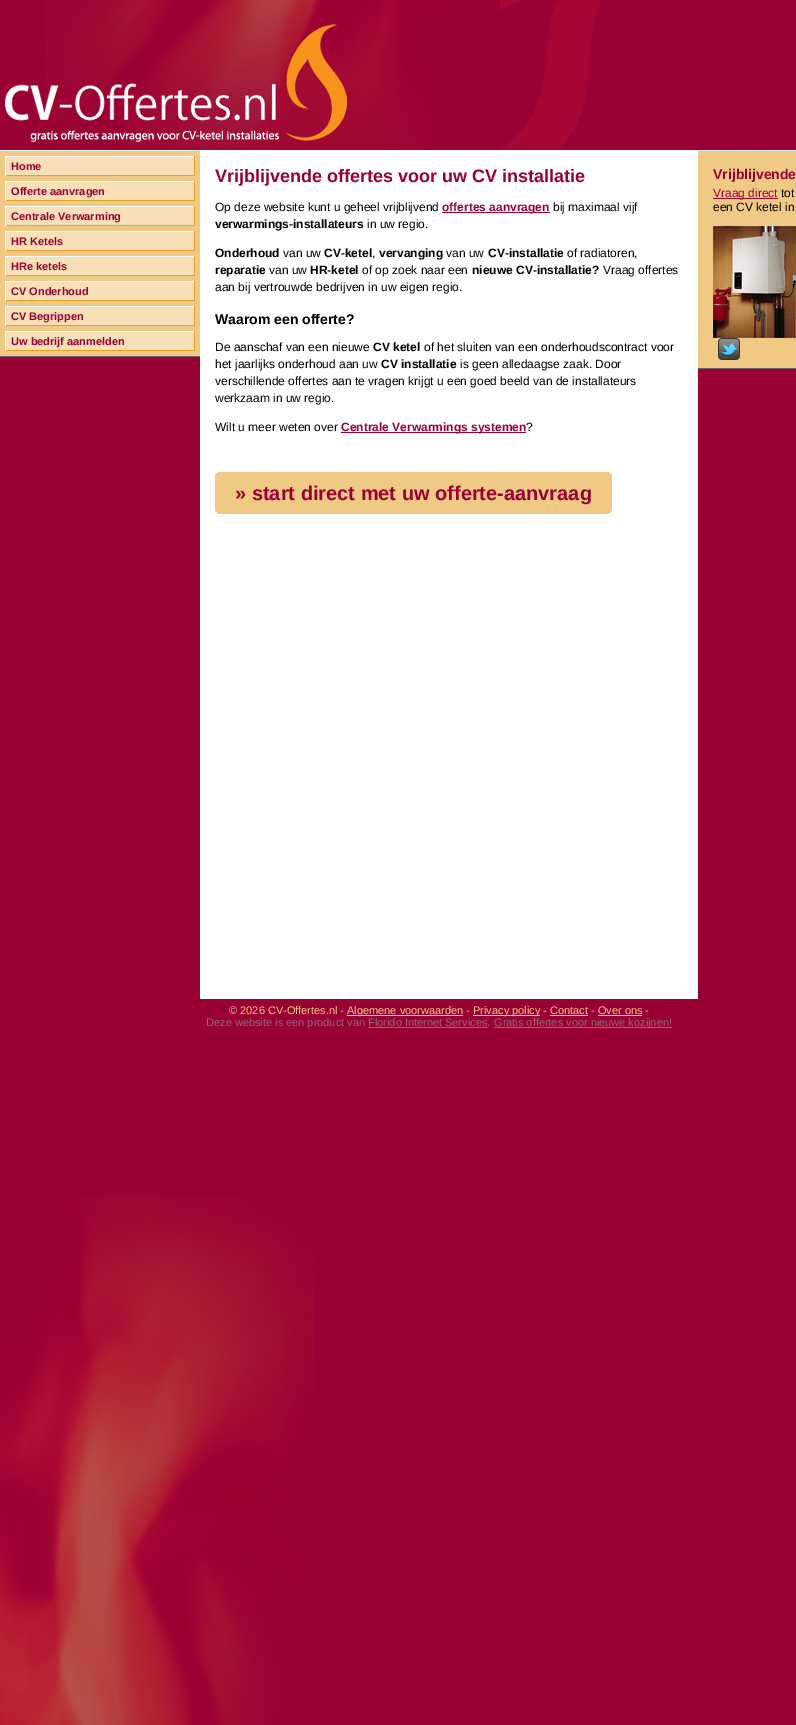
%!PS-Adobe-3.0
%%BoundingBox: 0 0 796 1725
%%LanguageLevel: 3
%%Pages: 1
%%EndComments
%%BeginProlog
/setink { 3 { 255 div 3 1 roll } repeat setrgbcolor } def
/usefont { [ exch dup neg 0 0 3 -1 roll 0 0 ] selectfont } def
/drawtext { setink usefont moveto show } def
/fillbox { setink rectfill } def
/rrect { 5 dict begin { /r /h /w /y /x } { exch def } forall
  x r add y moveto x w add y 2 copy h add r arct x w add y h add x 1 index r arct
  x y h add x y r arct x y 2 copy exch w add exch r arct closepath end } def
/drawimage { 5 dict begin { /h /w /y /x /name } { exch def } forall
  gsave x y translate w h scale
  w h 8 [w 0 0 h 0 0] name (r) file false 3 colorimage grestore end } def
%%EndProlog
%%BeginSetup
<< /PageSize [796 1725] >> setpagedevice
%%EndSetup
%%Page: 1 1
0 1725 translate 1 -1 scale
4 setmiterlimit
0 0 796 1725 153 0 51 fillbox
(assets/img1.rgb) 0 1195 314 530 drawimage
(assets/img2.rgb) 500 0 102 150 drawimage
(assets/img3.rgb) 46 0 454 150 drawimage
(assets/img4.rgb) 5 24 342 118 drawimage
0 151 200 205 240 202 132 fillbox
0 150 200 1 255 255 255 fillbox
0 356 200 1 102 102 102 fillbox
5 156 190 1 255 255 255 fillbox
194 156 1 20 228 163 39 fillbox
5 175 190 1 228 163 39 fillbox
5 156 1 20 255 255 255 fillbox
6 157 188 18 247 224 183 fillbox
(Home) 11 170 /LiberationSans-Bold 11 153 0 51 drawtext
5 181 190 1 255 255 255 fillbox
194 181 1 20 228 163 39 fillbox
5 200 190 1 228 163 39 fillbox
5 181 1 20 255 255 255 fillbox
6 182 188 18 247 224 183 fillbox
(Offerte aanvragen) 11 195 /LiberationSans-Bold 11 153 0 51 drawtext
5 206 190 1 255 255 255 fillbox
194 206 1 20 228 163 39 fillbox
5 225 190 1 228 163 39 fillbox
5 206 1 20 255 255 255 fillbox
6 207 188 18 247 224 183 fillbox
(Centrale Verwarming) 11 220 /LiberationSans-Bold 11 153 0 51 drawtext
5 231 190 1 255 255 255 fillbox
194 231 1 20 228 163 39 fillbox
5 250 190 1 228 163 39 fillbox
5 231 1 20 255 255 255 fillbox
6 232 188 18 247 224 183 fillbox
(HR Ketels) 11 245 /LiberationSans-Bold 11 153 0 51 drawtext
5 256 190 1 255 255 255 fillbox
194 256 1 20 228 163 39 fillbox
5 275 190 1 228 163 39 fillbox
5 256 1 20 255 255 255 fillbox
6 257 188 18 247 224 183 fillbox
(HRe ketels) 11 270 /LiberationSans-Bold 11 153 0 51 drawtext
5 281 190 1 255 255 255 fillbox
194 281 1 20 228 163 39 fillbox
5 300 190 1 228 163 39 fillbox
5 281 1 20 255 255 255 fillbox
6 282 188 18 247 224 183 fillbox
(CV Onderhoud) 11 295 /LiberationSans-Bold 11 153 0 51 drawtext
5 306 190 1 255 255 255 fillbox
194 306 1 20 228 163 39 fillbox
5 325 190 1 228 163 39 fillbox
5 306 1 20 255 255 255 fillbox
6 307 188 18 247 224 183 fillbox
(CV Begrippen) 11 320 /LiberationSans-Bold 11 153 0 51 drawtext
5 331 190 1 255 255 255 fillbox
194 331 1 20 228 163 39 fillbox
5 350 190 1 228 163 39 fillbox
5 331 1 20 255 255 255 fillbox
6 332 188 18 247 224 183 fillbox
(Uw bedrijf aanmelden) 11 345 /LiberationSans-Bold 11 153 0 51 drawtext
200 150 498 849 255 255 255 fillbox
(Vrijblijvende offertes voor uw CV installatie) 215 182 /LiberationSans-Bold 18 153 0 51 drawtext
(Op deze website kunt u geheel vrijblijvend) 215 211 /LiberationSans-Regular 12 0 0 0 drawtext
442 212 108 1 153 0 51 fillbox
(offertes aanvragen) 442 211 /LiberationSans-Bold 12 153 0 51 drawtext
(bij maximaal vijf) 553 211 /LiberationSans-Regular 12 0 0 0 drawtext
(verwarmings-installateurs) 215 228 /LiberationSans-Bold 12 0 0 0 drawtext
(in uw regio.) 367 228 /LiberationSans-Regular 12 0 0 0 drawtext
(Onderhoud) 215 257 /LiberationSans-Bold 12 0 0 0 drawtext
(van uw) 283 257 /LiberationSans-Regular 12 0 0 0 drawtext
(CV-ketel) 324 257 /LiberationSans-Bold 12 0 0 0 drawtext
(,) 372 257 /LiberationSans-Regular 12 0 0 0 drawtext
(vervanging) 379 257 /LiberationSans-Bold 12 0 0 0 drawtext
(van uw) 446 257 /LiberationSans-Regular 12 0 0 0 drawtext
(CV-installatie) 488 257 /LiberationSans-Bold 12 0 0 0 drawtext
(of radiatoren,) 567 257 /LiberationSans-Regular 12 0 0 0 drawtext
(reparatie) 215 274 /LiberationSans-Bold 12 0 0 0 drawtext
(van uw) 269 274 /LiberationSans-Regular 12 0 0 0 drawtext
(HR-ketel) 310 274 /LiberationSans-Bold 12 0 0 0 drawtext
(of op zoek naar een) 362 274 /LiberationSans-Regular 12 0 0 0 drawtext
(nieuwe CV-installatie?) 472 274 /LiberationSans-Bold 12 0 0 0 drawtext
(Vraag offertes) 603 274 /LiberationSans-Regular 12 0 0 0 drawtext
(aan bij vertrouwde bedrijven in uw eigen regio.) 215 291 /LiberationSans-Regular 12 0 0 0 drawtext
(Waarom een offerte?) 215 324 /LiberationSans-Bold 14 0 0 0 drawtext
(De aanschaf van een nieuwe) 215 351 /LiberationSans-Regular 12 0 0 0 drawtext
(CV ketel) 373 351 /LiberationSans-Bold 12 0 0 0 drawtext
(of het sluiten van een onderhoudscontract voor) 424 351 /LiberationSans-Regular 12 0 0 0 drawtext
(het jaarlijks onderhoud aan uw) 215 368 /LiberationSans-Regular 12 0 0 0 drawtext
(CV installatie) 381 368 /LiberationSans-Bold 12 0 0 0 drawtext
(is geen alledaagse zaak. Door) 460 368 /LiberationSans-Regular 12 0 0 0 drawtext
(verschillende offertes aan te vragen krijgt u een goed beeld van de installateurs) 215 385 /LiberationSans-Regular 12 0 0 0 drawtext
(werkzaam in uw regio.) 215 402 /LiberationSans-Regular 12 0 0 0 drawtext
(Wilt u meer weten over) 215 431 /LiberationSans-Regular 12 0 0 0 drawtext
341 432 185 1 153 0 51 fillbox
(Centrale Verwarmings systemen) 341 431 /LiberationSans-Bold 12 153 0 51 drawtext
(?) 526 431 /LiberationSans-Regular 12 0 0 0 drawtext
240 202 132 setink
215 472 397 42 5 rrect fill
(» start direct met uw offerte-aanvraag) 235 500 /LiberationSans-Bold 20 153 0 51 drawtext
698 151 98 217 240 202 132 fillbox
698 150 98 1 255 255 255 fillbox
698 368 98 1 102 102 102 fillbox
(Vrijblijvende) 713 179 /LiberationSans-Bold 14 153 0 51 drawtext
713 198 65 1 153 0 51 fillbox
(Vraag direct) 713 197 /LiberationSans-Regular 12 153 0 51 drawtext
(tot) 781 197 /LiberationSans-Regular 12 0 0 0 drawtext
(een CV ketel in) 713 211 /LiberationSans-Regular 12 0 0 0 drawtext
(assets/img5.rgb) 713 226 83 112 drawimage
(assets/img6.rgb) 718 338 22 22 drawimage
(© 2026 CV-Offertes.nl -) 229 1014 /LiberationSans-Regular 11 240 202 132 drawtext
347 1015 116 1 240 202 132 fillbox
(Algemene voorwaarden -) 347 1014 /LiberationSans-Regular 11 240 202 132 drawtext
473 1015 67 1 240 202 132 fillbox
(Privacy policy - Contact - Over ons -) 473 1014 /LiberationSans-Regular 11 240 202 132 drawtext
550 1015 38 1 240 202 132 fillbox
598 1015 44 1 240 202 132 fillbox
(Deze website is een product van Florido Internet Services.) 206 1026 /LiberationSans-Regular 11 151 104 120 drawtext
494 1027 178 1 151 104 120 fillbox
(Gratis offertes voor nieuwe kozijnen!) 494 1026 /LiberationSans-Regular 11 151 104 120 drawtext
368 1027 120 1 151 104 120 fillbox
showpage
%%EOF
